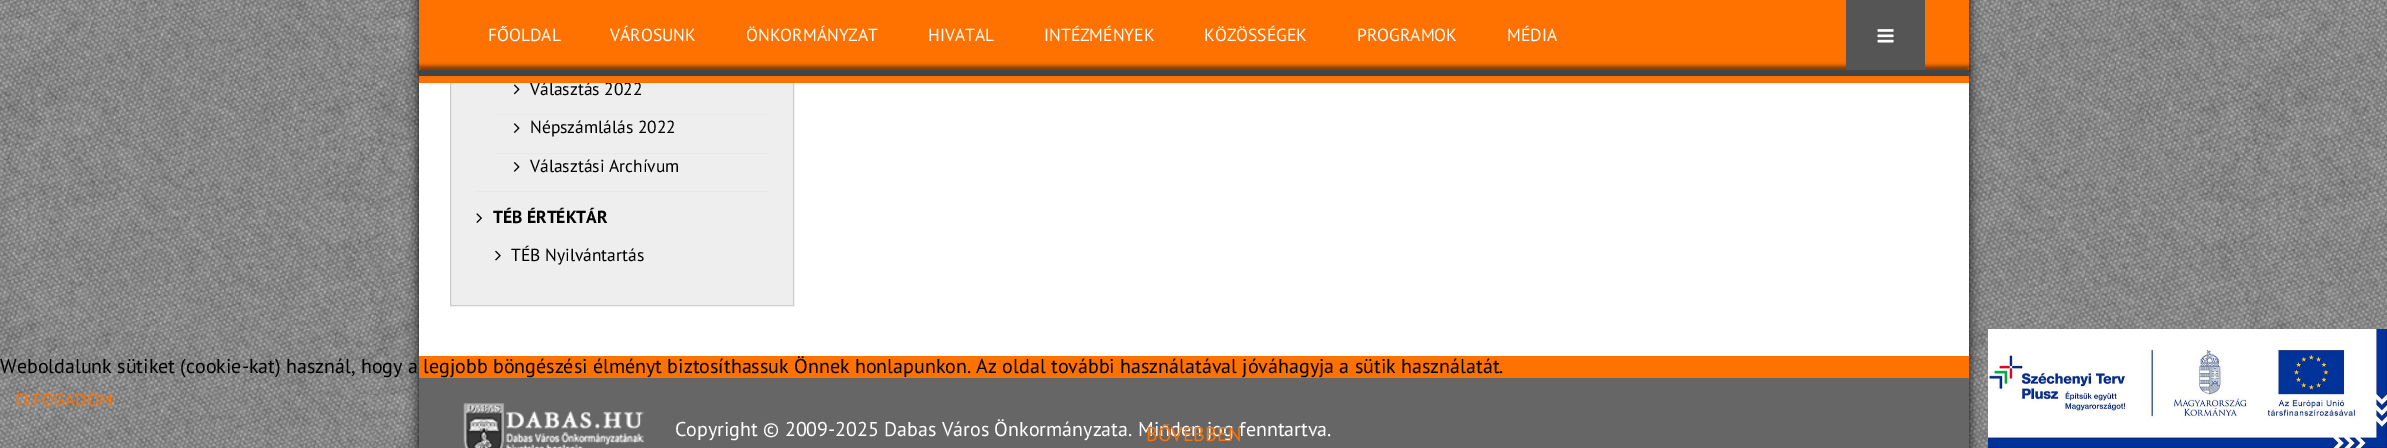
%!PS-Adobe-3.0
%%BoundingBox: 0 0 2387 448
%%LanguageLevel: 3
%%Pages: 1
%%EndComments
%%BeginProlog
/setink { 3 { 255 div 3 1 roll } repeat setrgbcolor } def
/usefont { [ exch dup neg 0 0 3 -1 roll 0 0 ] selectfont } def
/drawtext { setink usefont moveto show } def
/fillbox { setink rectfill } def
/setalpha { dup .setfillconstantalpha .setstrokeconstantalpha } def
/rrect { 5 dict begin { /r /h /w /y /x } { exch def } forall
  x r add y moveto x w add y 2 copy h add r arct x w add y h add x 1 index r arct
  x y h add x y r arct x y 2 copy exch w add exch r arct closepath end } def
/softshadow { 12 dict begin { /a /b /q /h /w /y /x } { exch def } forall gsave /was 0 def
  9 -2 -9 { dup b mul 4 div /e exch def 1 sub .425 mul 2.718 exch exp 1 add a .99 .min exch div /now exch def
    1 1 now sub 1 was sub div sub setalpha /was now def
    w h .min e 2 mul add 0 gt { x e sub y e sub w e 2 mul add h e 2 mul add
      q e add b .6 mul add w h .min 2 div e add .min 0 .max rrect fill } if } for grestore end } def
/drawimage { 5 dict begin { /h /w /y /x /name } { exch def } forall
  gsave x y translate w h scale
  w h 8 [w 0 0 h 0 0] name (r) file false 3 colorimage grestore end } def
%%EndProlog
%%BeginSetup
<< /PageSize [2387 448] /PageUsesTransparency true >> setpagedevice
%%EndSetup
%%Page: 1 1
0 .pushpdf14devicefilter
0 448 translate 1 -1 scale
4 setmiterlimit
0 0 2387 448 255 255 255 fillbox
(assets/img1.rgb) 0 0 2387 448 drawimage
0 0 0 setink
419 -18 1550 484 0 6 0.9 softshadow
419 83 1550 273 255 255 255 fillbox
451 83 342 222 238 238 238 fillbox
204 204 204 setink
450.5 -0.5 343 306 rectstroke
(Választás 2022) 530 95 /PTSans-Regular 17.5 0 0 0 drawtext
419 0 1550 83 255 114 0 fillbox
(FŐOLDAL) 488 41 /PTSans-Regular 17.5 255 255 255 drawtext
(VÁROSUNK) 610 41 /PTSans-Regular 17.5 255 255 255 drawtext
(ÖNKORMÁNYZAT) 746 41 /PTSans-Regular 17.5 255 255 255 drawtext
(HIVATAL) 928 41 /PTSans-Regular 17.5 255 255 255 drawtext
(INTÉZMÉNYEK) 1044 41 /PTSans-Regular 17.5 255 255 255 drawtext
(KÖZÖSSÉGEK) 1204 41 /PTSans-Regular 17.5 255 255 255 drawtext
(PROGRAMOK) 1357 41 /PTSans-Regular 17.5 255 255 255 drawtext
(MÉDIA) 1507 41 /PTSans-Regular 17.5 255 255 255 drawtext
0 0 0 setink
419 66 1550 7 0 2 0.5 softshadow
1846 0 79 70 85 85 85 fillbox
(assets/img2.rgb) 1877 29 17 14 drawimage
419 70 1550 6 68 68 68 fillbox
476 191 292 1 232 232 232 fillbox
495 114 273 1 232 232 232 fillbox
(assets/img3.rgb) 513 84 7 11 drawimage
495 153 273 1 232 232 232 fillbox
(assets/img4.rgb) 513 123 7 10 drawimage
(Népszámlálás 2022) 530 133 /PTSans-Regular 17.5 0 0 0 drawtext
(assets/img5.rgb) 513 162 7 10 drawimage
(Választási Archívum) 530 172 /PTSans-Regular 17.5 0 0 0 drawtext
(assets/img6.rgb) 476 213 6 10 drawimage
(TÉB ÉRTÉKTÁR) 493 223 /PTSans-Bold 17.5 0 0 0 drawtext
(assets/img7.rgb) 495 250 6 11 drawimage
(TÉB Nyilvántartás) 511 261 /PTSans-Regular 17.5 0 0 0 drawtext
419 356 1550 22 255 114 0 fillbox
419 378 1550 70 102 102 102 fillbox
(assets/img8.rgb) 463 403 181 45 drawimage
(Copyright © 2009-2025 Dabas Város Önkormányzata. Minden jog fenntartva.) 675 436 /PTSans-Regular 20 255 255 255 drawtext
(assets/img9.rgb) 1988 329 399 119 drawimage
(Weboldalunk sütiket \(cookie-kat\) használ, hogy a legjobb böngészési élményt biztosíthassuk Önnek honlapunkon. Az oldal további használatával jóváhagyja a sütik használatát.) 0 373 /PTSans-Regular 20 0 0 0 drawtext
(ELFOGADOM) 15 406 /PTSans-Regular 17.5 255 114 0 drawtext
(BŐVEBBEN) 1146 441 /PTSans-Regular 20 255 114 0 drawtext
.poppdf14devicefilter showpage
%%EOF
